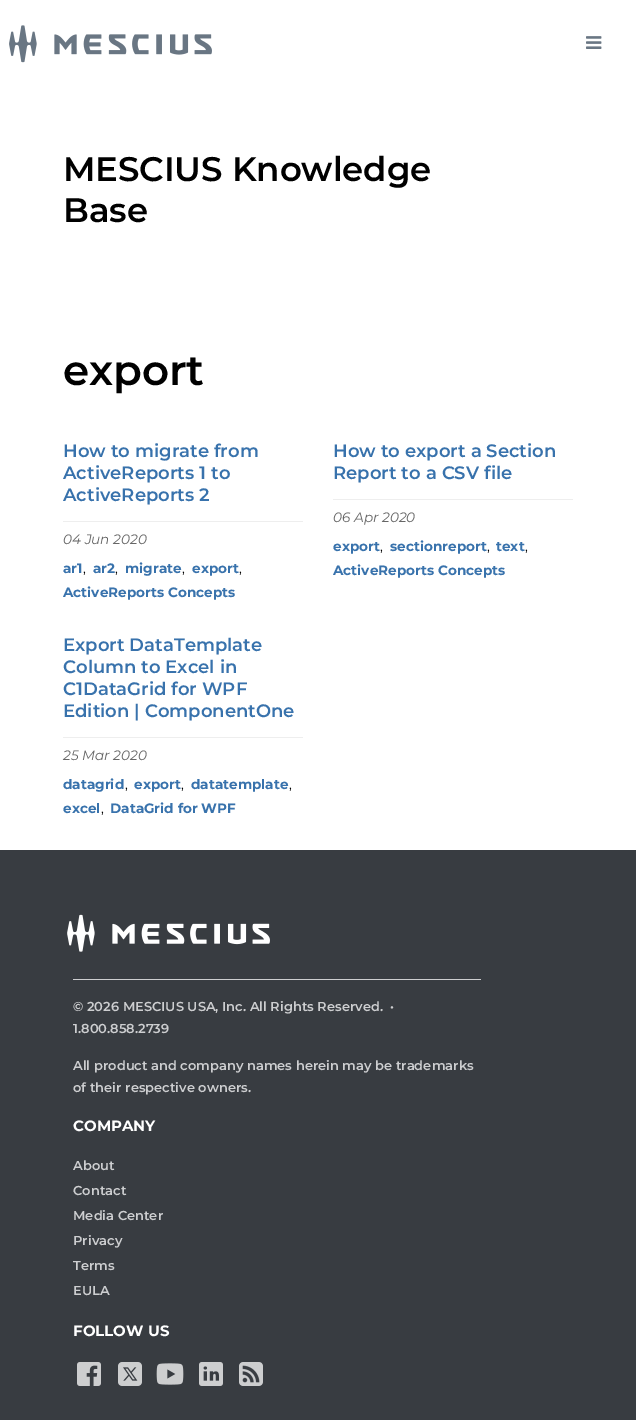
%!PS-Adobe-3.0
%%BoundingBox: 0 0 636 1420
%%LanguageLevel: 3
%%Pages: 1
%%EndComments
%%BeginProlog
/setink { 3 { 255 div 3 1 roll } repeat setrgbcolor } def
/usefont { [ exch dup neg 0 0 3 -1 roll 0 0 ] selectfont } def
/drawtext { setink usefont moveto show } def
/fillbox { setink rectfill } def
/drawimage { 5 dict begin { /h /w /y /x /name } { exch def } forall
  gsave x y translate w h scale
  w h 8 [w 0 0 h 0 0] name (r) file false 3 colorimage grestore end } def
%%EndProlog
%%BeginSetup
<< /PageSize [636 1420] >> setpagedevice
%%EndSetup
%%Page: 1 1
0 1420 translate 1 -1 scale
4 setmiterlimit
0 0 636 1420 255 255 255 fillbox
(assets/img1.rgb) 9 25 203 38 drawimage
(assets/img2.rgb) 586 36 16 13 drawimage
/Montserrat-SemiBold 34 usefont
0 0 0 setink
63 181 moveto -0.1 0 (MESCIUS Knowledge) ashow
63 222 moveto -0.1 0 (Base) ashow
/Montserrat-SemiBold 42 usefont
63 385 moveto -0.1 0 (export) ashow
(How to migrate from) 63 457 /Montserrat-SemiBold 18 56 114 172 drawtext
(ActiveReports 1 to) 63 479 /Montserrat-SemiBold 18 56 114 172 drawtext
(ActiveReports 2) 63 501 /Montserrat-SemiBold 18 56 114 172 drawtext
63 521 240 1 238 238 238 fillbox
(04 Jun 2020) 63 544 /Montserrat-Italic 13.6 102 102 102 drawtext
(ar1) 63 573 /Montserrat-Bold 13.6 56 114 172 drawtext
(,) 83 573 /Montserrat-Regular 13.6 0 0 0 drawtext
(ar2) 93 573 /Montserrat-Bold 13.6 56 114 172 drawtext
(,) 115 573 /Montserrat-Regular 13.6 0 0 0 drawtext
(migrate) 125 573 /Montserrat-Bold 13.6 56 114 172 drawtext
(,) 182 573 /Montserrat-Regular 13.6 0 0 0 drawtext
(export) 192 573 /Montserrat-Bold 13.6 56 114 172 drawtext
(,) 239 573 /Montserrat-Regular 13.6 0 0 0 drawtext
(ActiveReports Concepts) 63 597 /Montserrat-Bold 13.6 56 114 172 drawtext
(How to export a Section) 333 457 /Montserrat-SemiBold 18 56 114 172 drawtext
(Report to a CSV file) 333 479 /Montserrat-SemiBold 18 56 114 172 drawtext
333 499 240 1 238 238 238 fillbox
(06 Apr 2020) 333 522 /Montserrat-Italic 13.6 102 102 102 drawtext
(export) 333 551 /Montserrat-Bold 13.6 56 114 172 drawtext
(,) 380 551 /Montserrat-Regular 13.6 0 0 0 drawtext
(sectionreport) 390 551 /Montserrat-Bold 13.6 56 114 172 drawtext
(,) 487 551 /Montserrat-Regular 13.6 0 0 0 drawtext
(text) 496 551 /Montserrat-Bold 13.6 56 114 172 drawtext
(,) 525 551 /Montserrat-Regular 13.6 0 0 0 drawtext
(ActiveReports Concepts) 333 575 /Montserrat-Bold 13.6 56 114 172 drawtext
(Export DataTemplate) 63 651 /Montserrat-SemiBold 18 56 114 172 drawtext
(Column to Excel in) 63 673 /Montserrat-SemiBold 18 56 114 172 drawtext
(C1DataGrid for WPF) 63 695 /Montserrat-SemiBold 18 56 114 172 drawtext
(Edition | ComponentOne) 63 717 /Montserrat-SemiBold 18 56 114 172 drawtext
63 737 240 1 238 238 238 fillbox
(25 Mar 2020) 63 760 /Montserrat-Italic 13.6 102 102 102 drawtext
(datagrid) 63 789 /Montserrat-Bold 13.6 56 114 172 drawtext
(,) 125 789 /Montserrat-Regular 13.6 0 0 0 drawtext
(export) 134 789 /Montserrat-Bold 13.6 56 114 172 drawtext
(,) 181 789 /Montserrat-Regular 13.6 0 0 0 drawtext
(datatemplate) 191 789 /Montserrat-Bold 13.6 56 114 172 drawtext
(,) 289 789 /Montserrat-Regular 13.6 0 0 0 drawtext
(excel) 63 813 /Montserrat-Bold 13.6 56 114 172 drawtext
(,) 101 813 /Montserrat-Regular 13.6 0 0 0 drawtext
(DataGrid for WPF) 110 813 /Montserrat-Bold 13.6 56 114 172 drawtext
0 850 636 570 56 60 65 fillbox
73 979 408 1 205 206 208 fillbox
(assets/img3.rgb) 67 914 203 38 drawimage
(© 2026 MESCIUS USA, Inc. All Rights Reserved.) 73 1011 /Montserrat-SemiBold 13 205 206 208 drawtext
(·) 390 1011 /Montserrat-Bold 13 205 206 208 drawtext
(1.800.858.2739) 73 1033 /Montserrat-SemiBold 13 205 206 208 drawtext
(All product and company names herein may be trademarks) 73 1070 /Montserrat-SemiBold 13 205 206 208 drawtext
(of their respective owners.) 73 1092 /Montserrat-SemiBold 13 205 206 208 drawtext
(COMPANY) 73 1131 /Montserrat-Bold 15 255 255 255 drawtext
(About) 73 1170 /Montserrat-SemiBold 13 205 206 208 drawtext
(Contact) 73 1195 /Montserrat-SemiBold 13 205 206 208 drawtext
(Media Center) 73 1220 /Montserrat-SemiBold 13 205 206 208 drawtext
(Privacy) 73 1245 /Montserrat-SemiBold 13 205 206 208 drawtext
(Terms) 73 1270 /Montserrat-SemiBold 13 205 206 208 drawtext
(EULA) 73 1295 /Montserrat-SemiBold 13 205 206 208 drawtext
(FOLLOW US) 73 1336 /Montserrat-Bold 15 255 255 255 drawtext
(assets/img4.rgb) 77 1362 24 24 drawimage
(assets/img5.rgb) 118 1362 24 24 drawimage
(assets/img6.rgb) 156 1363 28 22 drawimage
(assets/img7.rgb) 199 1362 24 24 drawimage
(assets/img8.rgb) 239 1362 24 24 drawimage
showpage
%%EOF
